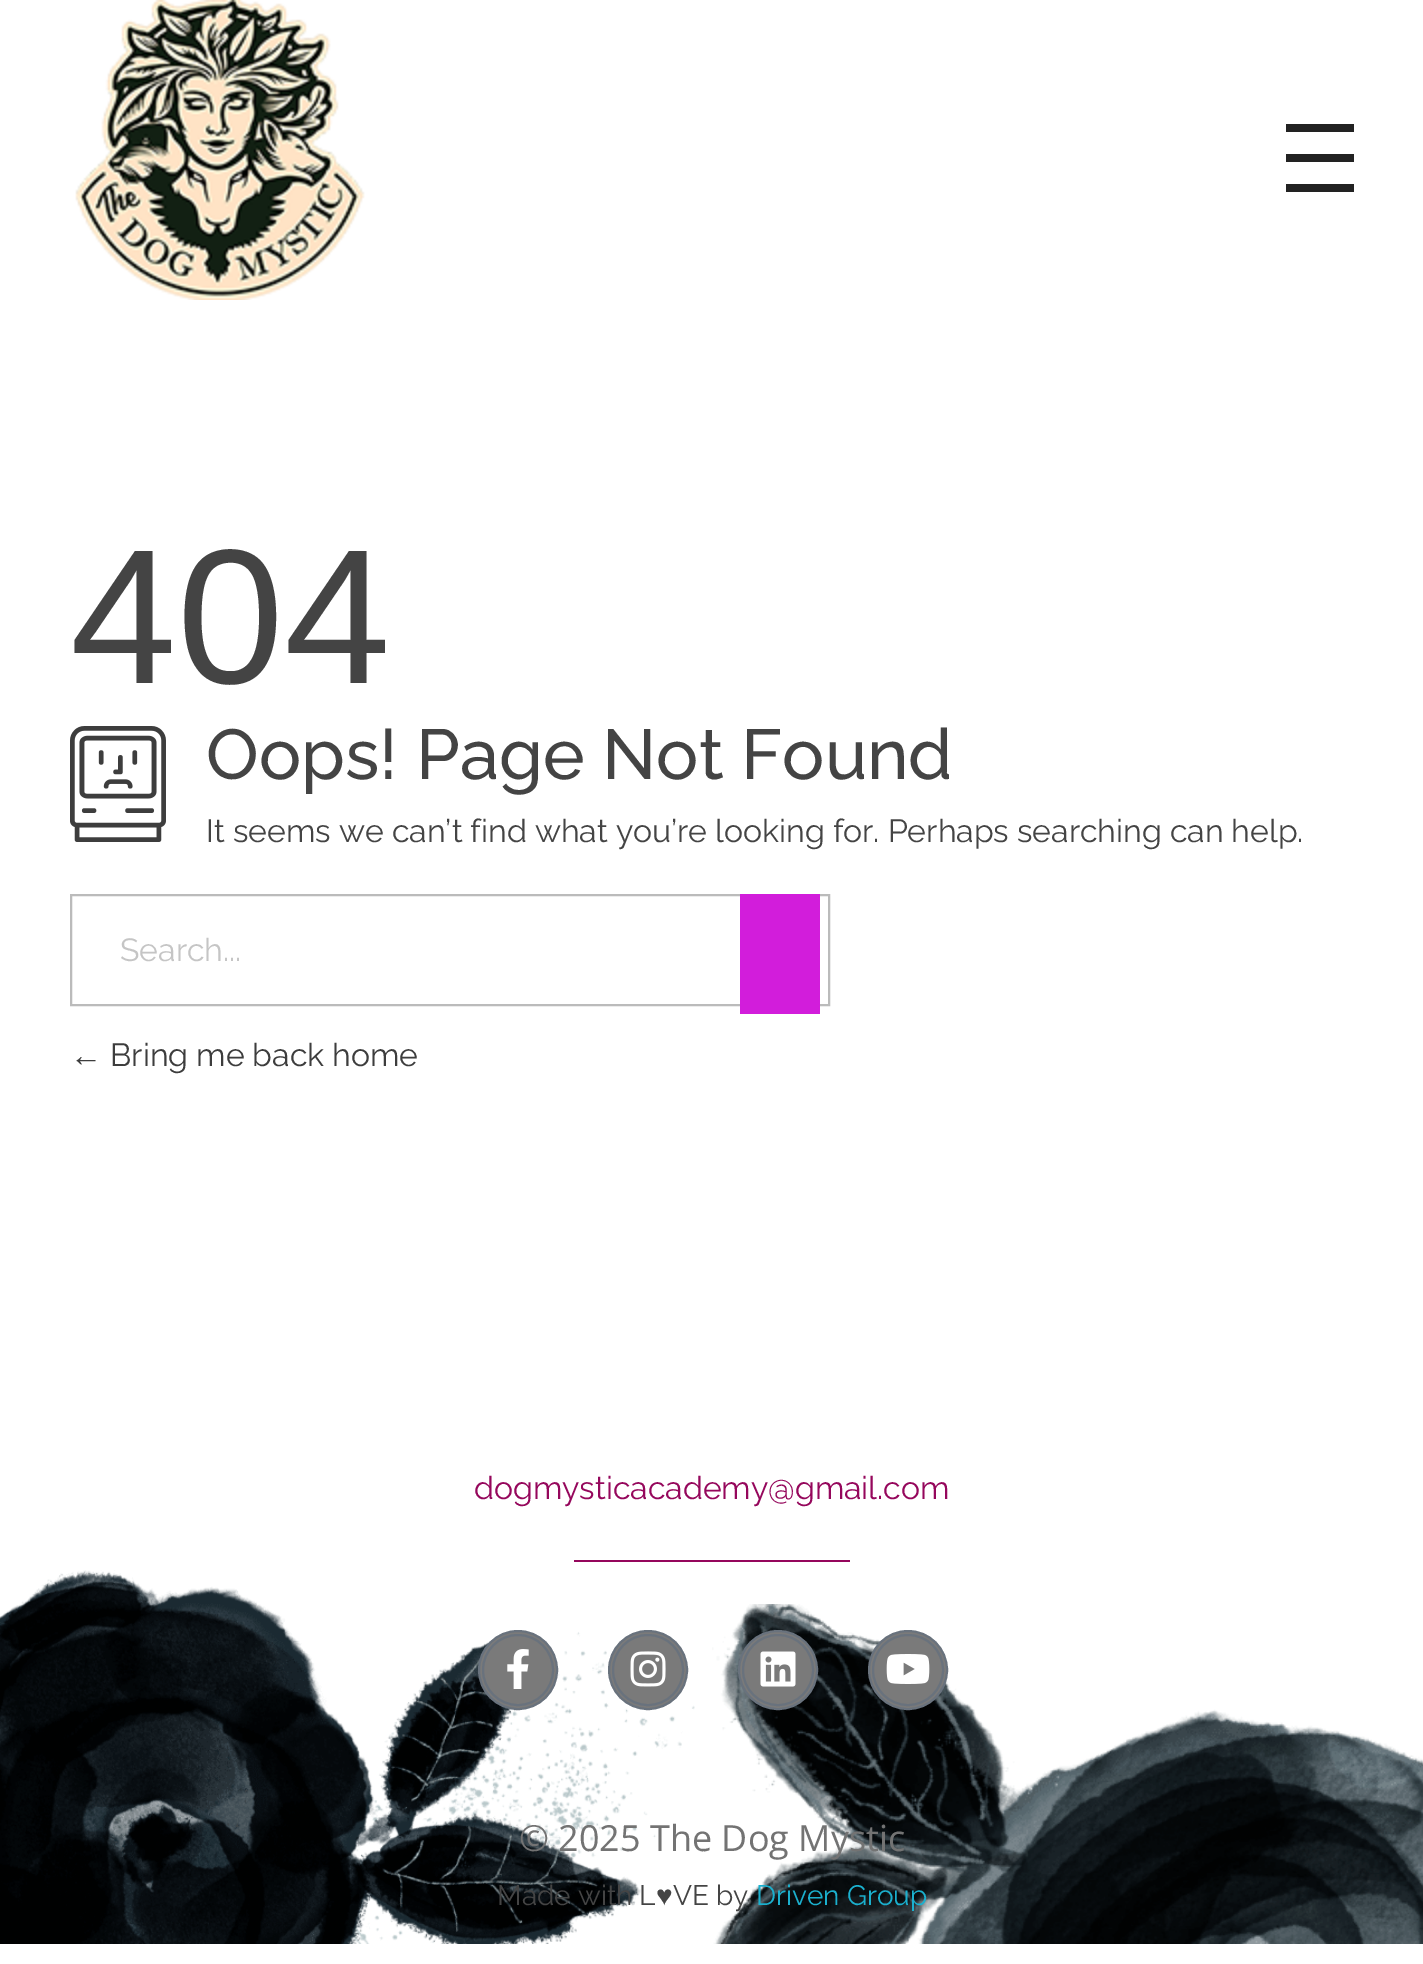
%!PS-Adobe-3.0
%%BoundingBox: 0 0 1423 1964
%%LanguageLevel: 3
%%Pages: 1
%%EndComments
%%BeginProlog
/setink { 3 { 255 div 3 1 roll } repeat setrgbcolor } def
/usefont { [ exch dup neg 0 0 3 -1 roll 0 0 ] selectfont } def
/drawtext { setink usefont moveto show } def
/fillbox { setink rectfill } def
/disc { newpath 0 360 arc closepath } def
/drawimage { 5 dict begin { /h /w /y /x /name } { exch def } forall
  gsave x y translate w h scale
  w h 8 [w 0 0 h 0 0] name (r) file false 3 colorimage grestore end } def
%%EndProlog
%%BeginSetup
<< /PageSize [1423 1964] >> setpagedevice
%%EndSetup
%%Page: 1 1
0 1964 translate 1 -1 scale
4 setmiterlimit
0 0 1423 1964 255 255 255 fillbox
(assets/img1.rgb) 75 0 290 300 drawimage
1286 124 68 8 34 34 34 fillbox
1286 154 68 8 34 34 34 fillbox
1286 184 68 8 34 34 34 fillbox
(404) 70 683 /LiberationSans-Regular 192 68 68 68 drawtext
(assets/img2.rgb) 70 726 96 116 drawimage
(Oops! Page Not Found) 206 779 /Raleway-Medium 70.5 68 68 68 drawtext
(It seems we can’t find what you’re looking for. Perhaps searching can help.) 206 842 /Raleway-Regular 32 68 68 68 drawtext
187 187 187 setink
2 setlinewidth
71 895 758 110 rectstroke
(Search...) 120 961 /Raleway-Regular 32 197 197 197 drawtext
740 894 80 120 210 29 219 fillbox
(←) 70 1066 /LiberationSans-Regular 32 61 61 61 drawtext
(Bring me back home) 110 1066 /Raleway-Regular 32 61 61 61 drawtext
(assets/img3.rgb) 0 1570 695 374 drawimage
(dogmysticacademy@gmail.com) 474 1499 /Raleway-Regular 32 149 7 92 drawtext
574 1560 276 2 149 7 92 fillbox
122 122 122 setink
518 1670 39 disc gsave fill grestore
105 114 125 setink
stroke
518 1670 35 disc stroke
(assets/img4.rgb) 507 1649 22 40 drawimage
122 122 122 setink
648 1670 39 disc gsave fill grestore
105 114 125 setink
stroke
648 1670 35 disc stroke
(assets/img5.rgb) 630 1651 36 36 drawimage
(assets/img8.rgb) 712 1604 711 340 drawimage
122 122 122 setink
778 1670 39 disc gsave fill grestore
105 114 125 setink
stroke
778 1670 35 disc stroke
(assets/img6.rgb) 760 1651 36 36 drawimage
122 122 122 setink
908 1670 39 disc gsave fill grestore
105 114 125 setink
stroke
908 1670 35 disc stroke
(assets/img7.rgb) 886 1654 44 30 drawimage
(© 2025 The Dog Mystic) 519 1851 /OpenSans-Regular 36 115 115 115 drawtext
(Made with L) 497 1905 /Raleway-Regular 28 68 68 68 drawtext
(♥) 656 1905 /LiberationSans-Regular 28 68 68 68 drawtext
(VE by) 673 1905 /Raleway-Regular 28 68 68 68 drawtext
(Driven Group) 756 1905 /Raleway-Regular 28 27 176 206 drawtext
showpage
%%EOF
